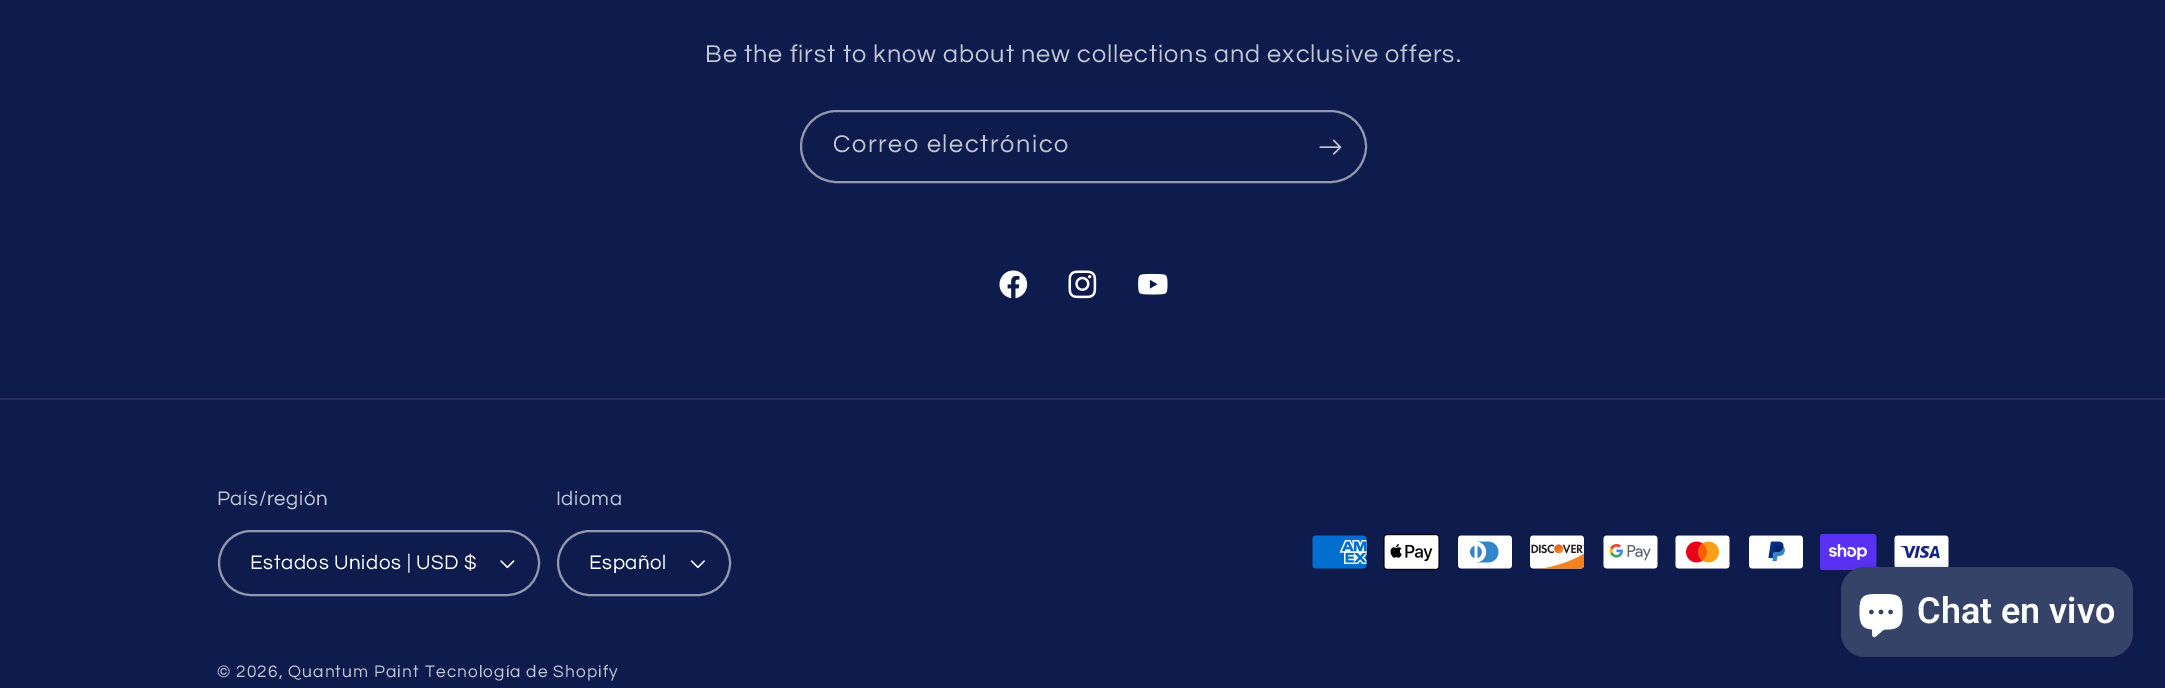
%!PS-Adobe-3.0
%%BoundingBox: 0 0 2165 688
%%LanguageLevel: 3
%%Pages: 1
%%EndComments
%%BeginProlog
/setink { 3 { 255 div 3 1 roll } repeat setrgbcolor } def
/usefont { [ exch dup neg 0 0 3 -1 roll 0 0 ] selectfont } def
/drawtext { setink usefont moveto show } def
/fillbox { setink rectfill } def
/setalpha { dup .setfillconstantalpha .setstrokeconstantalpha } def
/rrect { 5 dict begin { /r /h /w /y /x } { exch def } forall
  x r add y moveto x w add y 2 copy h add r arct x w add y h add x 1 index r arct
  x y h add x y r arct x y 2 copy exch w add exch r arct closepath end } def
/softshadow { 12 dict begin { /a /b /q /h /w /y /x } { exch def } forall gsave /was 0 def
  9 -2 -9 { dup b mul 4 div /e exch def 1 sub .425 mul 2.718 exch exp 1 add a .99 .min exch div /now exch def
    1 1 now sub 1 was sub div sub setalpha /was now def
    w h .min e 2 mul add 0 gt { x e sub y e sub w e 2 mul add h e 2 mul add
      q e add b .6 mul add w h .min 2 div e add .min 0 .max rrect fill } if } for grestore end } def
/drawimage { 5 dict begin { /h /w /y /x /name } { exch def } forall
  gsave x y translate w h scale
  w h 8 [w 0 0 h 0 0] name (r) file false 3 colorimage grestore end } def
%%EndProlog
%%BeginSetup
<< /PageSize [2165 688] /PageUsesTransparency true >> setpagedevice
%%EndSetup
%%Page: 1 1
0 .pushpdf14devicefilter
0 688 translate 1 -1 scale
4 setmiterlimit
0 0 2165 688 14 27 77 fillbox
/Questrial-Regular 25.2 usefont
195 198 211 setink
705 62 moveto 0.95 0 (Be the first to know about new collections and exclusive offers.) ashow
147 152 175 setink
2 setlinewidth
801 111 565 71 35.5 rrect stroke
195 198 211 setink
833 152 moveto 1.6 0 (Correo electrónico) ashow
(assets/img1.rgb) 1319 139 23 16 drawimage
(assets/img2.rgb) 999 270 29 29 drawimage
(assets/img3.rgb) 1068 270 29 29 drawimage
(assets/img4.rgb) 1138 273 30 22 drawimage
0 398 2165 2 33 45 91 fillbox
/Questrial-Regular 20.5 usefont
195 198 211 setink
217 505 moveto 0.6 0 (País/región) ashow
(assets/img5.rgb) 500 560 15 9 drawimage
147 152 175 setink
219 531 320 64 32 rrect stroke
255 255 255 setink
250 569 moveto 0.6 0 (Estados Unidos | USD $) ashow
195 198 211 setink
556 505 moveto 0.6 0 (Idioma) ashow
(assets/img6.rgb) 690 560 15 9 drawimage
147 152 175 setink
558 531 172 64 32 rrect stroke
255 255 255 setink
589 569 moveto 0.6 0 (Español) ashow
(assets/img7.rgb) 1311 534 57 36 drawimage
(assets/img8.rgb) 1383 534 57 36 drawimage
(assets/img9.rgb) 1457 534 56 36 drawimage
(assets/img10.rgb) 1529 534 56 36 drawimage
(assets/img11.rgb) 1602 534 57 36 drawimage
(assets/img12.rgb) 1674 534 57 36 drawimage
(assets/img13.rgb) 1748 534 56 36 drawimage
(assets/img14.rgb) 1820 534 57 36 drawimage
(assets/img15.rgb) 1893 534 57 33 drawimage
/Questrial-Regular 17.25 usefont
195 198 211 setink
217 677 moveto 1.1 0 (© 2026, Quantum Paint) ashow
425 677 moveto 1.1 0 (Tecnología de Shopify) ashow
0 0 0 setink
1841 567 292 90 24 4 0.15 softshadow
53 67 105 setink
1841 567 292 90 24 rrect fill
(assets/img16.rgb) 1859 594 44 44 drawimage
(Chat en vivo) 1917 623 /Roboto-SemiBold 36 255 255 255 drawtext
.poppdf14devicefilter showpage
%%EOF
